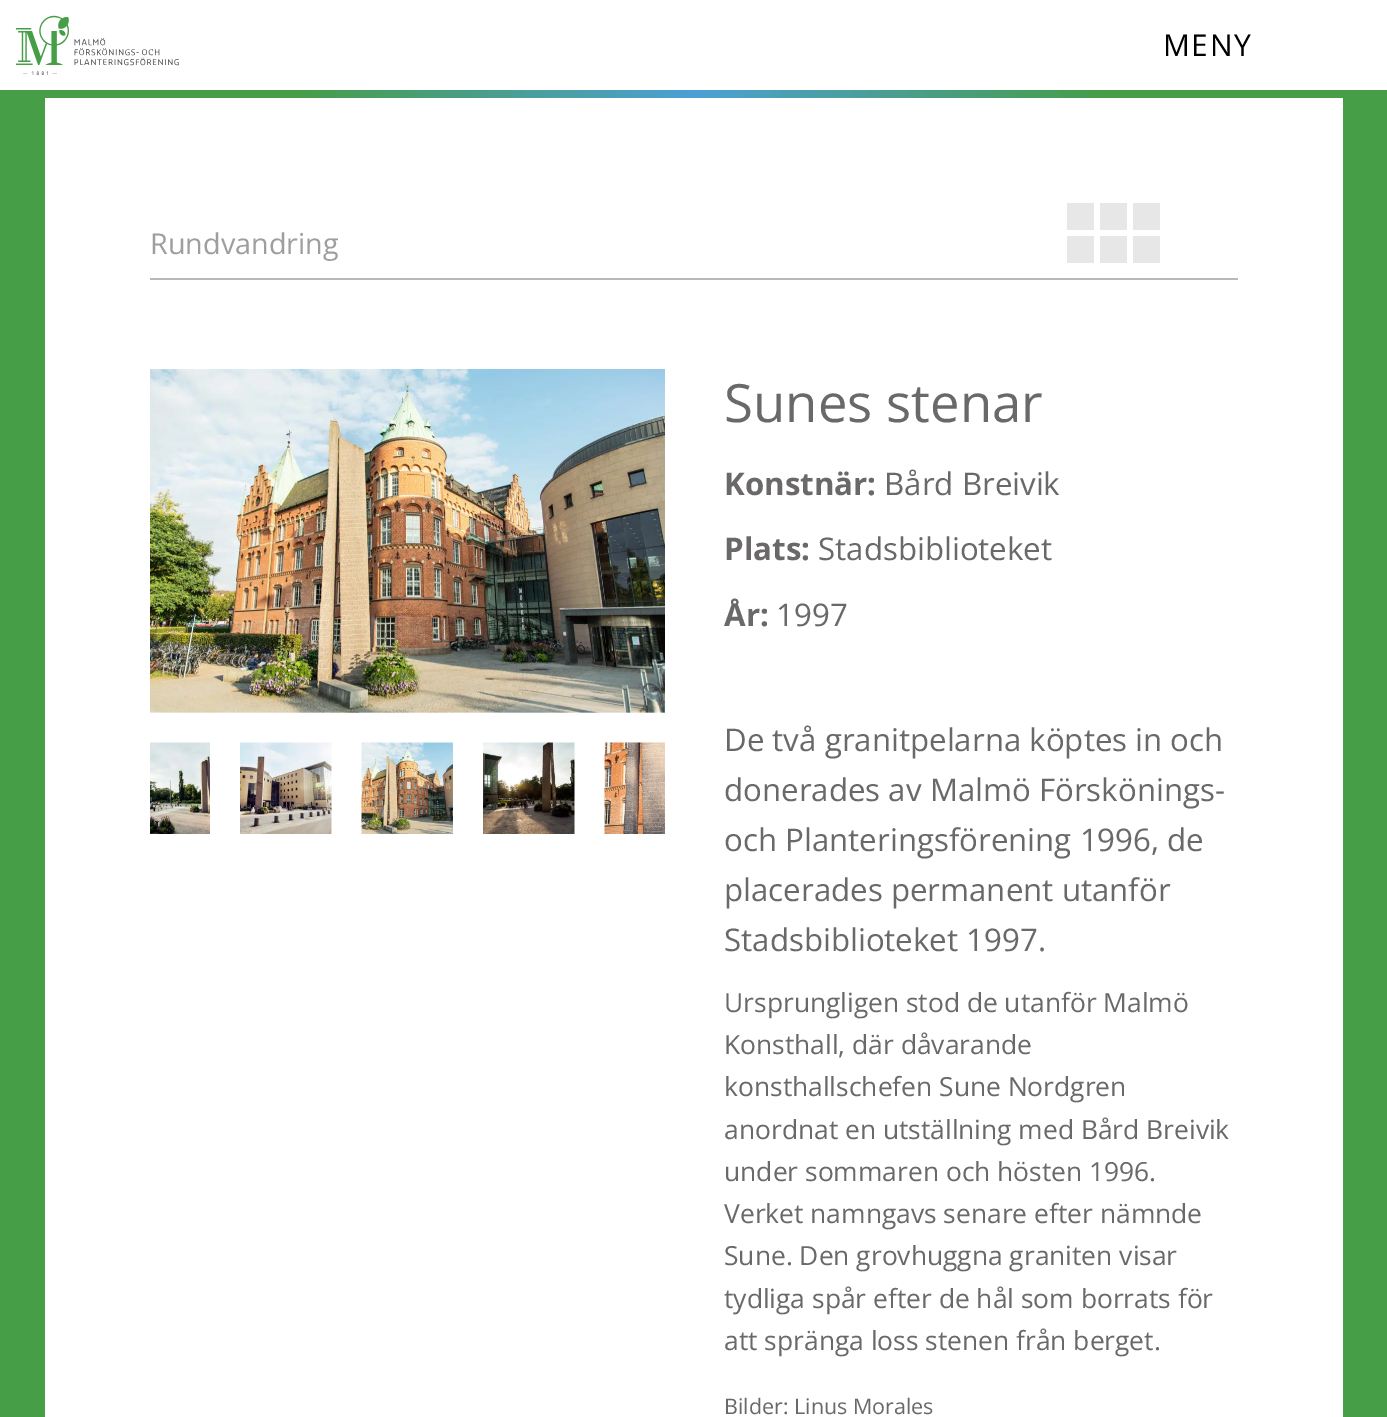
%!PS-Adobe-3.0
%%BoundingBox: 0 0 1387 1417
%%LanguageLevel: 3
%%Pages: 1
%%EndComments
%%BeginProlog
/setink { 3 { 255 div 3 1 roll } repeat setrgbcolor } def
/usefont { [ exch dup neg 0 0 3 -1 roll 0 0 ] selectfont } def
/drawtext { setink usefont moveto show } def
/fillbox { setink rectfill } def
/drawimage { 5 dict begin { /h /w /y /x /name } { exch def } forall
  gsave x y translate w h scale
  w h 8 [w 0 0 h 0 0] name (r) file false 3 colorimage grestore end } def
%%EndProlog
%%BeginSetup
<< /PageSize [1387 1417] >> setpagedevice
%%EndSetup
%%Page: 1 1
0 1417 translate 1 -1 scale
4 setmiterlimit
0 0 1387 1417 255 255 255 fillbox
gsave 0 90 moveto 1387 90 lineto 1387 1417 lineto 0 1417 lineto closepath clip newpath
<< /ShadingType 2 /ColorSpace /DeviceRGB /Coords [0 1050 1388 1050] /Extend [true true] /Function << /FunctionType 3 /Domain [0 1] /Functions [<< /FunctionType 2 /Domain [0 1] /C0 [0.275 0.62 0.275] /C1 [0.275 0.62 0.275] /N 1 >> << /FunctionType 2 /Domain [0 1] /C0 [0.275 0.62 0.275] /C1 [0.298 0.627 0.835] /N 1 >> << /FunctionType 2 /Domain [0 1] /C0 [0.298 0.627 0.835] /C1 [0.275 0.62 0.275] /N 1 >> << /FunctionType 2 /Domain [0 1] /C0 [0.275 0.62 0.275] /C1 [0.275 0.62 0.275] /N 1 >>] /Bounds [0.21 0.5 0.8] /Encode [0 1 0 1 0 1 0 1] >> >> shfill grestore
(assets/img1.rgb) 15 15 164 60 drawimage
/OpenSans-Regular 30 usefont
0 0 0 setink
1163 56 moveto 1.5 0 (MENY) ashow
45 98 1298 1319 255 255 255 fillbox
150 278 1088 2 185 185 185 fillbox
(Rundvandring) 150 254 /OpenSans-Regular 28.75 158 158 158 drawtext
1067 203 27 27 231 231 231 fillbox
1100 203 27 27 231 231 231 fillbox
1133 203 27 27 231 231 231 fillbox
1067 236 27 27 231 231 231 fillbox
1100 236 27 27 231 231 231 fillbox
1133 236 27 27 231 231 231 fillbox
(assets/img2.rgb) 150 369 515 344 drawimage
(assets/img3.rgb) 150 742 60 92 drawimage
(assets/img4.rgb) 240 742 92 92 drawimage
(assets/img5.rgb) 361 742 92 92 drawimage
(assets/img6.rgb) 483 742 92 92 drawimage
(assets/img7.rgb) 604 742 61 92 drawimage
(Sunes stenar) 724 422 /OpenSans-Regular 52.75 106 104 104 drawtext
(Konstnär:) 724 495 /OpenSans-Bold 31.25 106 104 104 drawtext
(Bård Breivik) 884 495 /OpenSans-Regular 31.25 106 104 104 drawtext
(Plats:) 724 560 /OpenSans-Bold 31.25 106 104 104 drawtext
(Stadsbiblioteket) 818 560 /OpenSans-Regular 31.25 106 104 104 drawtext
(År:) 724 626 /OpenSans-Bold 31.25 106 104 104 drawtext
(1997) 776 626 /OpenSans-Regular 31.25 106 104 104 drawtext
(De två granitpelarna köptes in och) 724 751 /OpenSans-Regular 31.25 106 104 104 drawtext
(donerades av Malmö Förskönings-) 724 801 /OpenSans-Regular 31.25 106 104 104 drawtext
(och Planteringsförening 1996, de) 724 851 /OpenSans-Regular 31.25 106 104 104 drawtext
(placerades permanent utanför) 724 901 /OpenSans-Regular 31.25 106 104 104 drawtext
(Stadsbiblioteket 1997.) 724 951 /OpenSans-Regular 31.25 106 104 104 drawtext
(Ursprungligen stod de utanför Malmö) 724 1012 /OpenSans-Regular 26.4 106 104 104 drawtext
(Konsthall, där dåvarande) 724 1054 /OpenSans-Regular 26.4 106 104 104 drawtext
(konsthallschefen Sune Nordgren) 724 1096 /OpenSans-Regular 26.4 106 104 104 drawtext
(anordnat en utställning med Bård Breivik) 724 1139 /OpenSans-Regular 26.4 106 104 104 drawtext
(under sommaren och hösten 1996.) 724 1181 /OpenSans-Regular 26.4 106 104 104 drawtext
(Verket namngavs senare efter nämnde) 724 1223 /OpenSans-Regular 26.4 106 104 104 drawtext
(Sune. Den grovhuggna graniten visar) 724 1265 /OpenSans-Regular 26.4 106 104 104 drawtext
(tydliga spår efter de hål som borrats för) 724 1308 /OpenSans-Regular 26.4 106 104 104 drawtext
(att spränga loss stenen från berget.) 724 1350 /OpenSans-Regular 26.4 106 104 104 drawtext
(Bilder: Linus Morales) 724 1414 /OpenSans-Regular 21.5 106 104 104 drawtext
showpage
%%EOF
